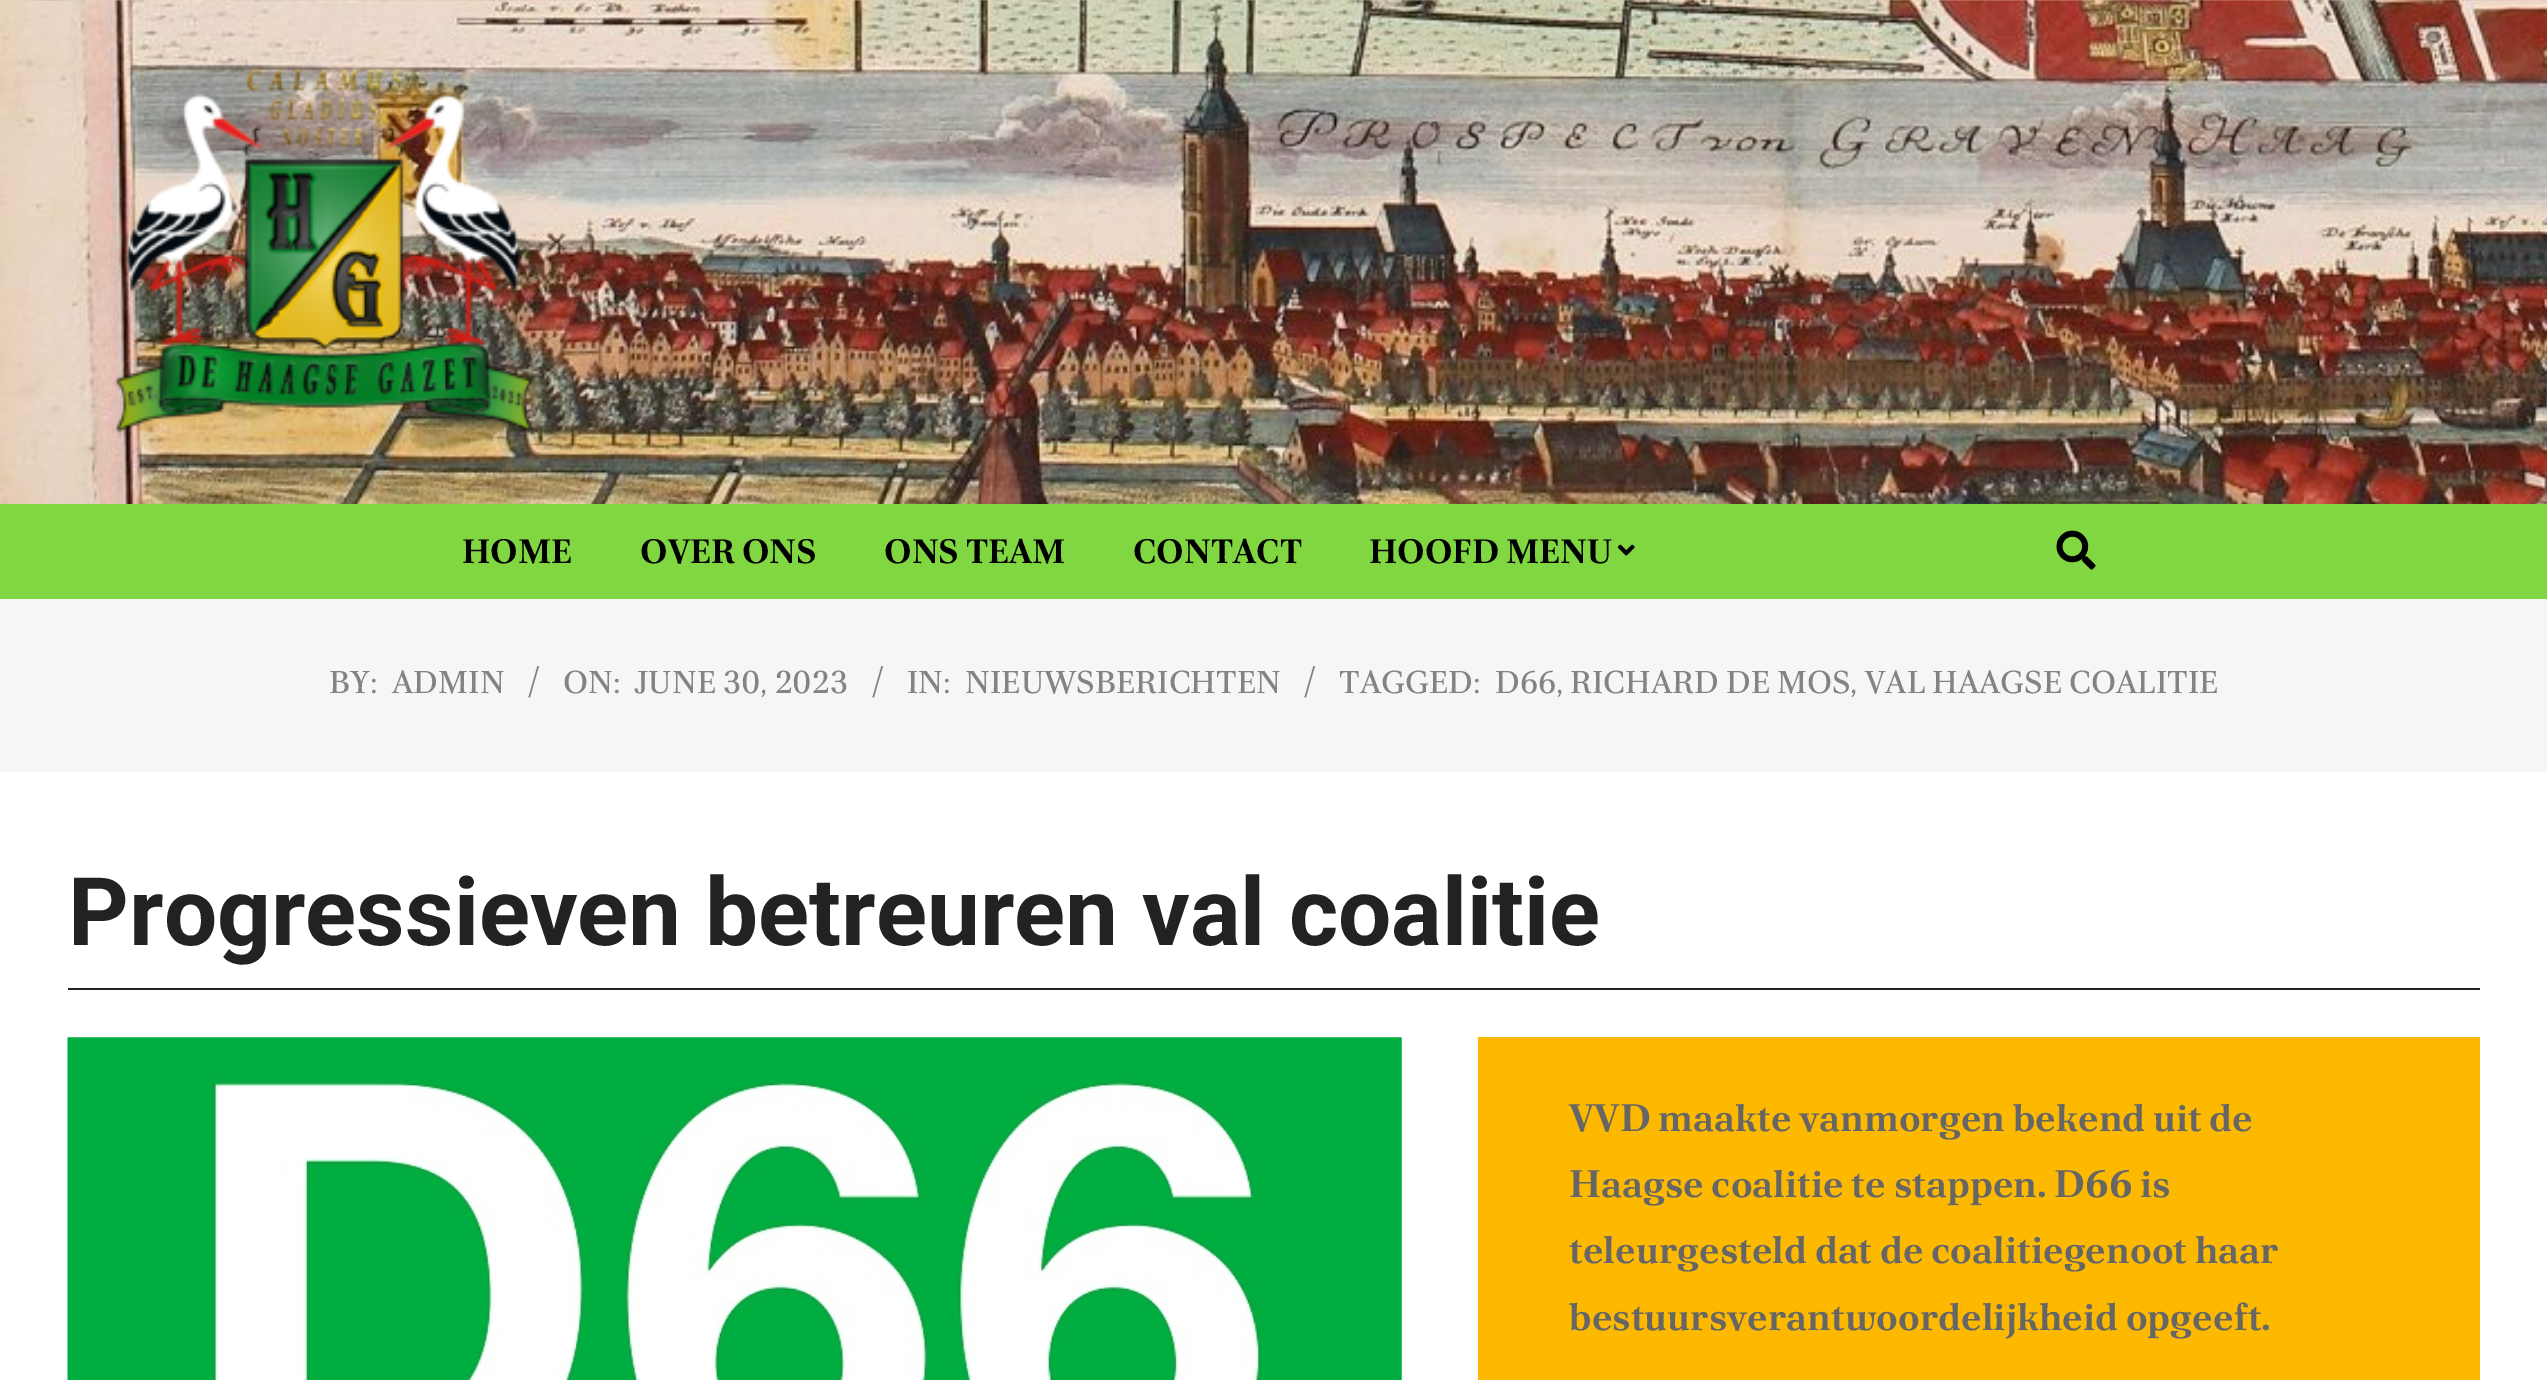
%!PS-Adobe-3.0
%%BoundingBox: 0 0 2547 1380
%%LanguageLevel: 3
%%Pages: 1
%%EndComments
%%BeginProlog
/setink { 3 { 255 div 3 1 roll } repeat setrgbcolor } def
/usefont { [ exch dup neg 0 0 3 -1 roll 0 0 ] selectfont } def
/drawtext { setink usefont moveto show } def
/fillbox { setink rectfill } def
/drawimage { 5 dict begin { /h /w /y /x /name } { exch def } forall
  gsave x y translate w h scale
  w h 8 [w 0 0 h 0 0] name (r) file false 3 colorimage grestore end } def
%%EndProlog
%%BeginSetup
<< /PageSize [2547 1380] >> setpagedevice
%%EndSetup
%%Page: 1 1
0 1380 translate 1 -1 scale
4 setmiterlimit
0 0 2547 1380 255 255 255 fillbox
(assets/img1.rgb) 0 0 2547 504 drawimage
(assets/img2.rgb) 114 67 420 366 drawimage
0 504 2547 95 129 215 66 fillbox
(HOME) 462 563 /PoltawskiNowy-Bold 33.75 0 0 0 drawtext
(OVER ONS) 640 563 /PoltawskiNowy-Bold 33.75 0 0 0 drawtext
(ONS TEAM) 884 563 /PoltawskiNowy-Bold 33.75 0 0 0 drawtext
(CONTACT) 1133 563 /PoltawskiNowy-Bold 33.75 0 0 0 drawtext
(HOOFD MENU) 1369 563 /PoltawskiNowy-Bold 33.75 0 0 0 drawtext
(assets/img3.rgb) 1617 544 18 12 drawimage
(assets/img4.rgb) 2056 530 40 40 drawimage
0 599 2547 173 246 246 246 fillbox
(BY:) 329 693 /PoltawskiNowy-Regular 31.5 131 131 131 drawtext
(ADMIN) 392 693 /PoltawskiNowy-Regular 31.5 131 131 131 drawtext
(/) 527 693 /PoltawskiNowy-Regular 37 131 131 131 drawtext
(ON:) 563 693 /PoltawskiNowy-Regular 31.5 131 131 131 drawtext
(JUNE 30, 2023) 634 693 /PoltawskiNowy-Regular 31.5 131 131 131 drawtext
(/) 871 693 /PoltawskiNowy-Regular 37 131 131 131 drawtext
(IN:) 907 693 /PoltawskiNowy-Regular 31.5 131 131 131 drawtext
(NIEUWSBERICHTEN) 965 693 /PoltawskiNowy-Regular 31.5 131 131 131 drawtext
(/) 1303 693 /PoltawskiNowy-Regular 37 131 131 131 drawtext
(TAGGED:) 1339 693 /PoltawskiNowy-Regular 31.5 131 131 131 drawtext
(D66, RICHARD DE MOS, VAL HAAGSE COALITIE) 1495 693 /PoltawskiNowy-Regular 31.5 131 131 131 drawtext
68 988 2412 2 34 34 34 fillbox
(Progressieven betreuren val coalitie) 68 945 /Roboto-Bold 94.5 34 34 34 drawtext
(assets/img5.rgb) 67 1037 1335 343 drawimage
1478 1037 1002 343 252 185 0 fillbox
(VVD maakte vanmorgen bekend uit de) 1569 1131 /PoltawskiNowy-Bold 38.25 102 102 102 drawtext
(Haagse coalitie te stappen. D66 is) 1569 1197 /PoltawskiNowy-Bold 38.25 102 102 102 drawtext
(teleurgesteld dat de coalitiegenoot haar) 1569 1263 /PoltawskiNowy-Bold 38.25 102 102 102 drawtext
(bestuursverantwoordelijkheid opgeeft.) 1569 1330 /PoltawskiNowy-Bold 38.25 102 102 102 drawtext
showpage
%%EOF
